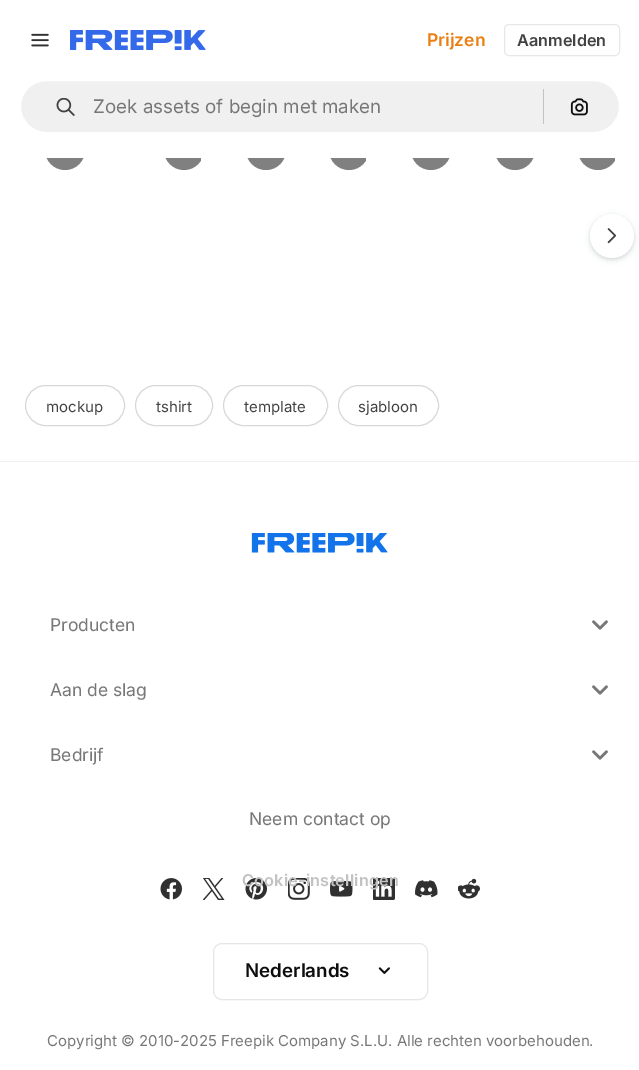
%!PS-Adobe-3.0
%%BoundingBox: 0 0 639 1070
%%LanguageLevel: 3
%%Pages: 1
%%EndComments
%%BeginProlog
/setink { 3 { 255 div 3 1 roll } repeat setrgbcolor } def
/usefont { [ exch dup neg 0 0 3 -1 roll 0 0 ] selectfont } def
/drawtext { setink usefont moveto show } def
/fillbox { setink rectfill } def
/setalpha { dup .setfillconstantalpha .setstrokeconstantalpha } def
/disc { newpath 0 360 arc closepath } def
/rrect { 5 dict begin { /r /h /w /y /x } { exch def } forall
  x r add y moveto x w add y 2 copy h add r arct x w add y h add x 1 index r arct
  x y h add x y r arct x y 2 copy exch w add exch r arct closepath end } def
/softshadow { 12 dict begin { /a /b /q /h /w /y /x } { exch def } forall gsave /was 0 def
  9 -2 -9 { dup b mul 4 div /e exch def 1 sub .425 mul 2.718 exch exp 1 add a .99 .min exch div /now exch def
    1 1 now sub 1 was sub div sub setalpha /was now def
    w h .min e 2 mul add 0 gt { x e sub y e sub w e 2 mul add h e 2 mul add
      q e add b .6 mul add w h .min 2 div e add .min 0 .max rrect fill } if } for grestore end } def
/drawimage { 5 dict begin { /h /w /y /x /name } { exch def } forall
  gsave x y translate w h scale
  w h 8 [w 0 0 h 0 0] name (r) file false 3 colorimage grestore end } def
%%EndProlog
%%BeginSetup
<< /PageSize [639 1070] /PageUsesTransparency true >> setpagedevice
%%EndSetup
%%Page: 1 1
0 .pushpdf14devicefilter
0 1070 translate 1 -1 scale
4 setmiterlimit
0 0 639 1070 255 255 255 fillbox
128 128 128 setink
65 150 20 disc fill
gsave
144 110 57 250 20 rrect clip newpath
184 150 20 disc fill
grestore
266 150 20 disc fill
gsave
309 110 57 250 20 rrect clip newpath
349 150 20 disc fill
grestore
431 150 20 disc fill
515 150 20 disc fill
gsave
558 110 57 250 20 rrect clip newpath
598 150 20 disc fill
grestore
45 130 570 28 255 255 255 fillbox
(assets/img1.rgb) 31 33 18 14 drawimage
(assets/img2.rgb) 70 30 136 20 drawimage
(Prijzen) 427 46 /Inter-SemiBold 17.5 234 126 17 drawtext
231 231 231 setink
504.5 24.5 115 31 4.5 rrect stroke
(Aanmelden) 517 46 /Inter-SemiBold 16.25 66 66 66 drawtext
240 240 240 setink
20.5 80.5 599 52 26 rrect gsave fill grestore
255 255 255 setink
stroke
(assets/img3.rgb) 56 98 19 18 drawimage
(Zoek assets of begin met maken) 93 113 /Inter-Regular 18.75 119 119 119 drawtext
543 89 1 35 195 195 195 fillbox
(assets/img4.rgb) 570 98 18 18 drawimage
55 73 87 setink
590 216 44 44 22 3 0.15 softshadow
590 215 44 44 22 1 0.1 softshadow
255 255 255 setink
612 236 22 disc fill
(assets/img5.rgb) 607 228 10 16 drawimage
216 216 216 setink
25.5 385.5 99 40 20 rrect stroke
(mockup) 46 412 /Inter-Regular 15 66 66 66 drawtext
216 216 216 setink
135.5 385.5 77 40 20 rrect stroke
(tshirt) 156 412 /Inter-Regular 15 66 66 66 drawtext
216 216 216 setink
223.5 385.5 104 40 20 rrect stroke
(template) 244 412 /Inter-Regular 15 66 66 66 drawtext
216 216 216 setink
338.5 385.5 100 40 20 rrect stroke
(sjabloon) 358 412 /Inter-Regular 15 66 66 66 drawtext
0 461 639 1 240 240 240 fillbox
(assets/img6.rgb) 251 533 137 20 drawimage
(Producten) 50 631 /Inter-Regular 17.5 119 119 119 drawtext
(assets/img7.rgb) 592 620 16 10 drawimage
(Aan de slag) 50 696 /Inter-Regular 17.5 119 119 119 drawtext
(assets/img7.rgb) 592 685 16 10 drawimage
(Bedrijf) 50 761 /Inter-Regular 17.5 119 119 119 drawtext
(assets/img7.rgb) 592 750 16 10 drawimage
(Neem contact op) 249 825 /Inter-Regular 17.5 119 119 119 drawtext
(assets/img8.rgb) 160 878 22 22 drawimage
(assets/img9.rgb) 203 878 22 22 drawimage
(assets/img10.rgb) 245 878 22 22 drawimage
(assets/img11.rgb) 288 878 22 22 drawimage
(assets/img12.rgb) 330 880 23 17 drawimage
(assets/img13.rgb) 373 878 22 22 drawimage
(assets/img14.rgb) 415 880 23 18 drawimage
(assets/img15.rgb) 458 878 22 21 drawimage
230 230 230 setink
213.5 943.5 214 56 8.5 rrect stroke
(Nederlands) 245 977 /Inter-SemiBold 18.75 13 13 13 drawtext
(assets/img16.rgb) 378 967 12 7 drawimage
(Copyright © 2010-2025 Freepik Company S.L.U. Alle rechten voorbehouden.) 47 1046 /Inter-Regular 15 119 119 119 drawtext
/Inter-SemiBold 16.25 usefont
194 194 194 setink
242 886 moveto 0.2 0 (Cookie-instellingen) ashow
.poppdf14devicefilter showpage
%%EOF
